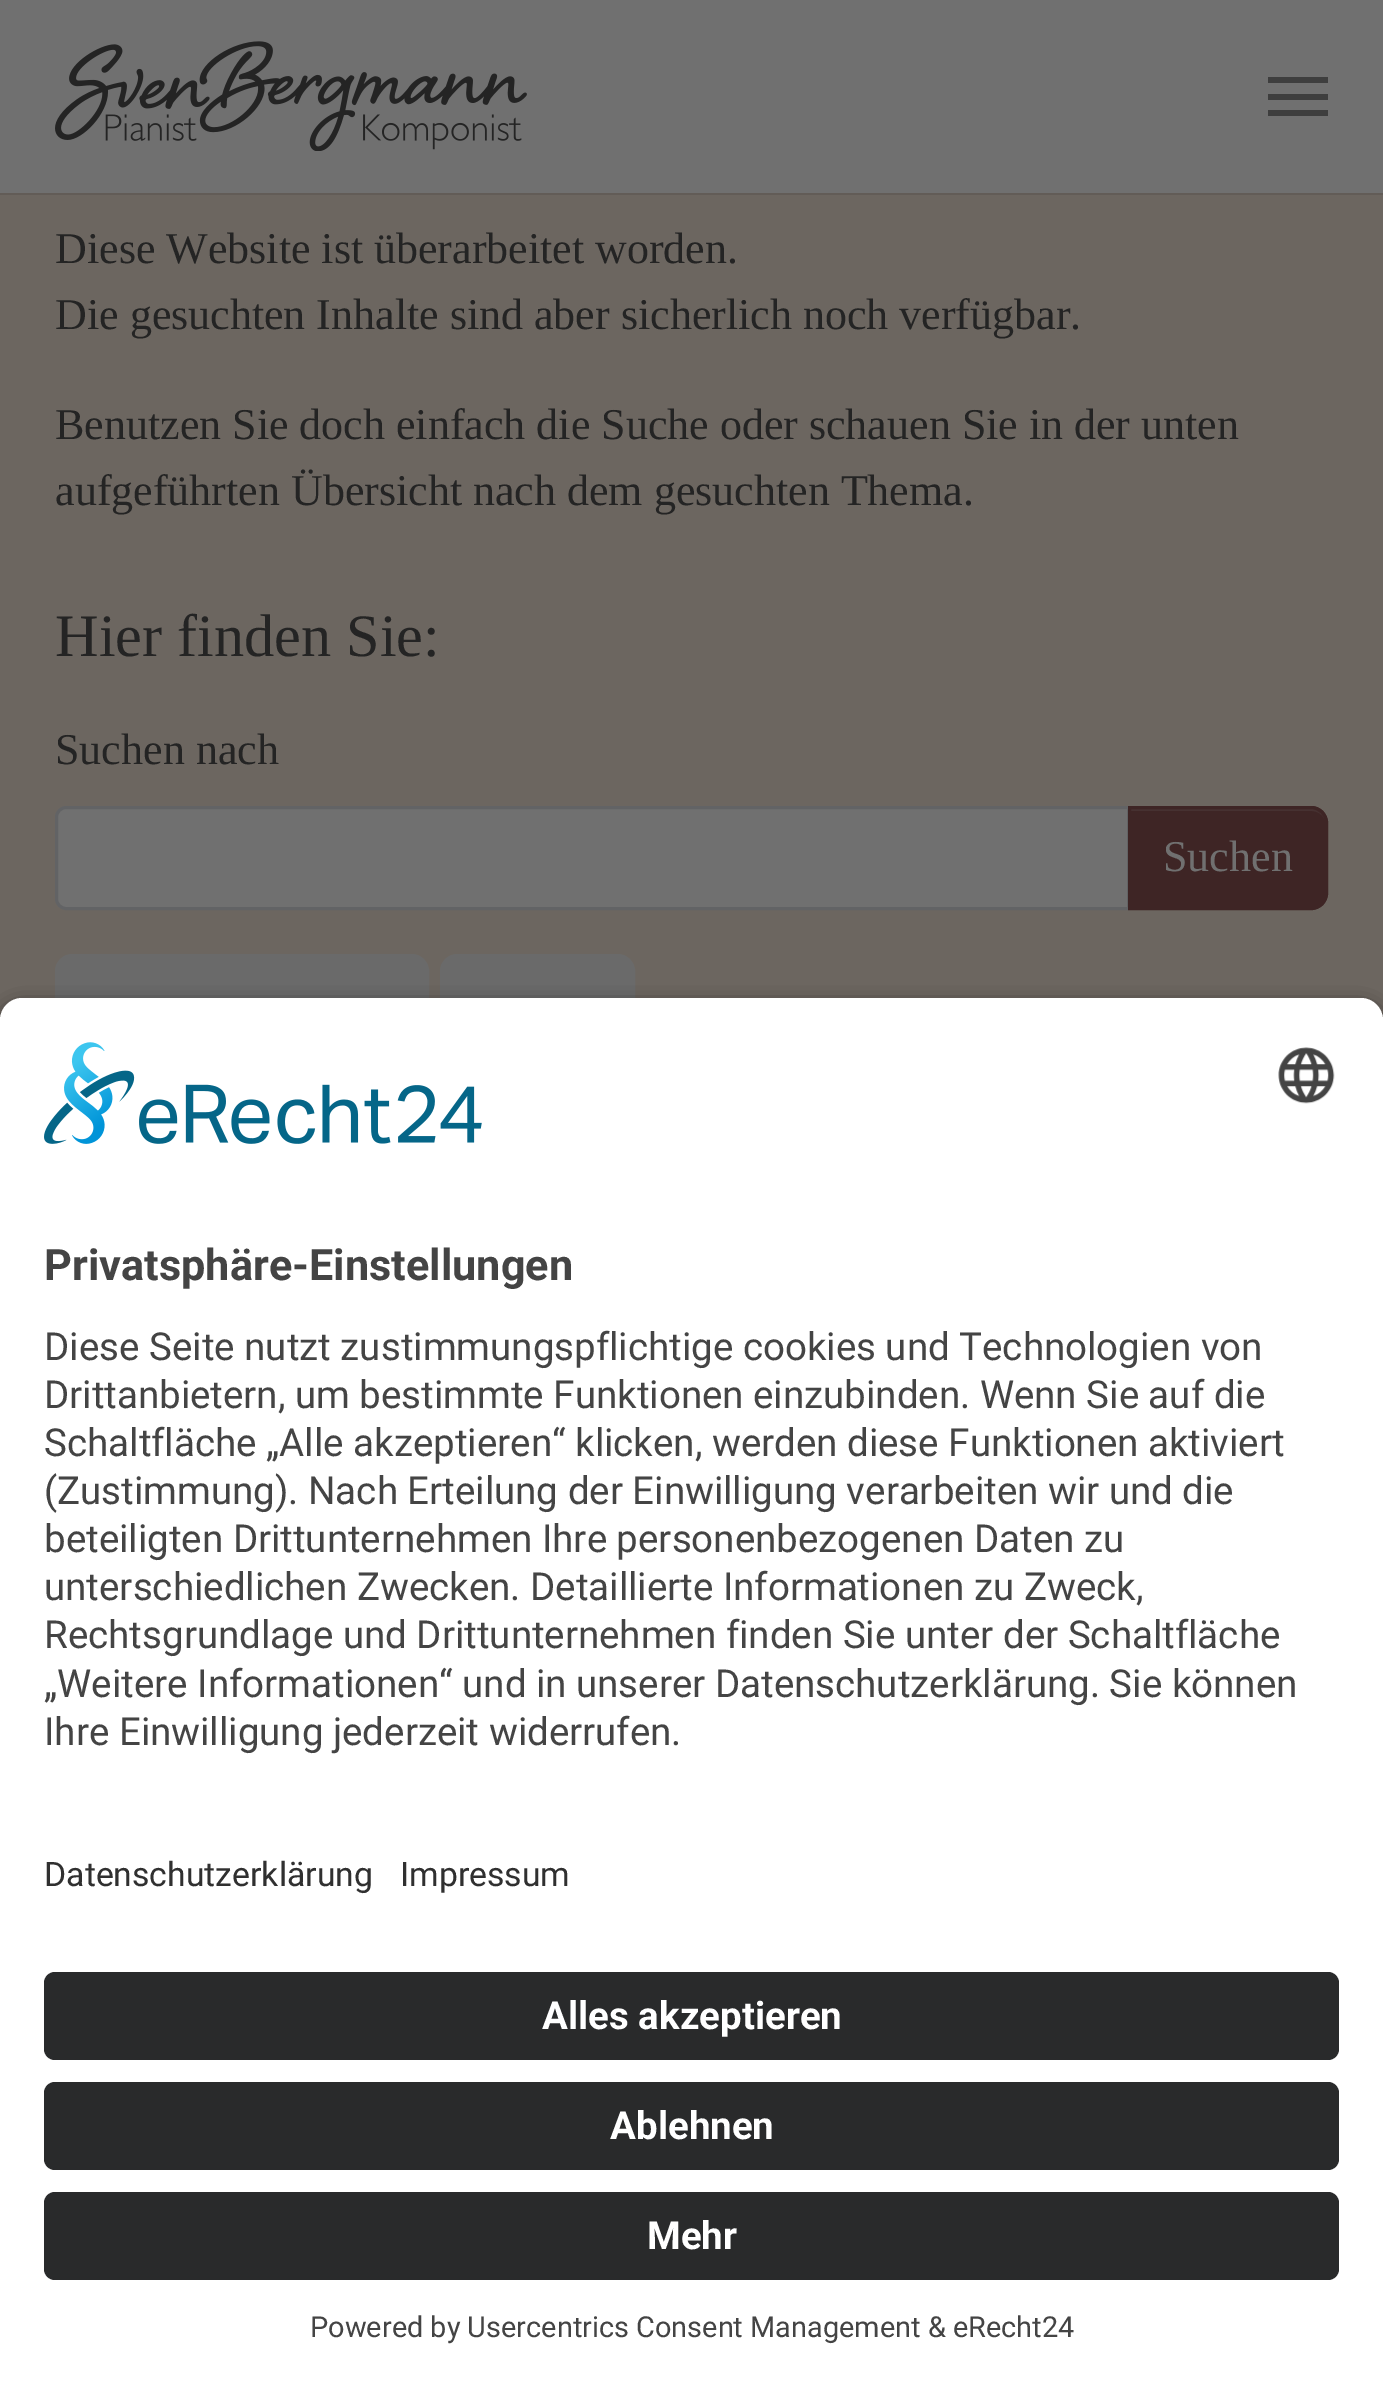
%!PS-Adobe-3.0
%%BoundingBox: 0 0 1383 2389
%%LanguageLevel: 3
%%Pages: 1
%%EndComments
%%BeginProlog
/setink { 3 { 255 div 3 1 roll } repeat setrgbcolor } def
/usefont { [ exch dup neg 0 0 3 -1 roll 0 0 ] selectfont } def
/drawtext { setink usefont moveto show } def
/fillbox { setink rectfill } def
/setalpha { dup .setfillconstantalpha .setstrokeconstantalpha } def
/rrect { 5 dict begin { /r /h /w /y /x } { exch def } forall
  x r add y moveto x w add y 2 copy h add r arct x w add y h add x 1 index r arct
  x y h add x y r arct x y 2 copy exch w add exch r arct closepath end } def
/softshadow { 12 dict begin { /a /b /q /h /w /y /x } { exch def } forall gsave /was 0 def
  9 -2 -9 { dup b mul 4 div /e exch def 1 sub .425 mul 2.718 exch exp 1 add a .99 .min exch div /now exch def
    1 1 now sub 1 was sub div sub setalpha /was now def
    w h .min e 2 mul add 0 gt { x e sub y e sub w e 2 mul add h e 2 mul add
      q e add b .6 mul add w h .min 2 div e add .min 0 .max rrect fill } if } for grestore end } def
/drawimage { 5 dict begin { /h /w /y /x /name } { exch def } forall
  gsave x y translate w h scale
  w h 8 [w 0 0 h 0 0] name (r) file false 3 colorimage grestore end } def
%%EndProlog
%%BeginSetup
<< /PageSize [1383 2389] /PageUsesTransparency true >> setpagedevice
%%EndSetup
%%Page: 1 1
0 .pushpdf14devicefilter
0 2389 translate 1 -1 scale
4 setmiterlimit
0 0 1383 2389 108 102 96 fillbox
0 193 1383 2 98 92 87 fillbox
0 0 1383 193 112 112 112 fillbox
(assets/img1.rgb) 55 41 472 110 drawimage
1268 94 60 6 62 62 62 fillbox
1268 77 60 6 62 62 62 fillbox
1268 110 60 6 62 62 62 fillbox
(Diese Website ist überarbeitet worden.) 55 263 /LiberationSerif-Regular 44 36 36 36 drawtext
(Die gesuchten Inhalte sind aber sicherlich noch verfügbar.) 55 329 /LiberationSerif-Regular 44 36 36 36 drawtext
(Benutzen Sie doch einfach die Suche oder schauen Sie in der unten) 55 439 /LiberationSerif-Regular 44 36 36 36 drawtext
(aufgeführten Übersicht nach dem gesuchten Thema.) 55 505 /LiberationSerif-Regular 44 36 36 36 drawtext
(Hier finden Sie:) 55 656 /LiberationSerif-Regular 60.25 36 36 36 drawtext
(Suchen nach) 55 764 /LiberationSerif-Regular 44 36 36 36 drawtext
112 112 112 setink
66 807.5 moveto 1128.5 807.5 lineto 1128.5 908.5 lineto 66 908.5 lineto 61 908.5 56.5 904 56.5 899 curveto 56.5 817 lineto 56.5 812 61 807.5 66 807.5 curveto closepath gsave fill grestore
98 99 101 setink
3 setlinewidth
stroke
62 37 37 setink
1128 806 moveto 1311 806 lineto 1320.5 806 1328 813.5 1328 823 curveto 1328 893 lineto 1328 902.5 1320.5 910 1311 910 curveto 1128 910 lineto closepath fill
70 49 49 setink
1130 811 moveto 1312 811 lineto 1319 811 1326 817 1326 825 curveto 1326 823 lineto 1326 815 1320 809 1312 809 curveto 1130 809 lineto closepath fill
62 37 37 setink
1129.5 807.5 moveto 1311 807.5 lineto 1319.5 807.5 1326.5 814.5 1326.5 823 curveto 1326.5 893 lineto 1326.5 901.5 1319.5 908.5 1311 908.5 curveto 1129.5 908.5 lineto closepath stroke
(Suchen) 1163 871 /LiberationSerif-Regular 44 112 112 112 drawtext
106 106 106 setink
56.5 955.5 371 102 15.5 rrect gsave fill grestore
stroke
441.5 955.5 192 102 15.5 rrect gsave fill grestore
stroke
0 0 0 setink
0 1007 1383 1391 22 9.5 0.8 softshadow
255 255 255 setink
22 998 moveto 1361 998 lineto 1373 998 1383 1008 1383 1020 curveto 1383 1812 lineto 0 1812 lineto 0 1020 lineto 0 1008 10 998 22 998 curveto closepath fill
(assets/img2.rgb) 44 1042 438 102 drawimage
(assets/img3.rgb) 1278 1047 57 57 drawimage
(Privatsphäre-Einstellungen) 44 1280 /Roboto-Bold 43.25 68 68 68 drawtext
(Diese Seite nutzt zustimmungspflichtige cookies und Technologien von) 44 1360 /Roboto-Regular 38.5 68 68 68 drawtext
(Drittanbietern, um bestimmte Funktionen einzubinden. Wenn Sie auf die) 44 1408 /Roboto-Regular 38.5 68 68 68 drawtext
(Schaltfläche „Alle akzeptieren“ klicken, werden diese Funktionen aktiviert) 44 1456 /Roboto-Regular 38.5 68 68 68 drawtext
(\(Zustimmung\). Nach Erteilung der Einwilligung verarbeiten wir und die) 44 1504 /Roboto-Regular 38.5 68 68 68 drawtext
(beteiligten Drittunternehmen Ihre personenbezogenen Daten zu) 44 1552 /Roboto-Regular 38.5 68 68 68 drawtext
(unterschiedlichen Zwecken. Detaillierte Informationen zu Zweck,) 44 1600 /Roboto-Regular 38.5 68 68 68 drawtext
(Rechtsgrundlage und Drittunternehmen finden Sie unter der Schaltfläche) 44 1648 /Roboto-Regular 38.5 68 68 68 drawtext
(„Weitere Informationen“ und in unserer Datenschutzerklärung. Sie können) 44 1697 /Roboto-Regular 38.5 68 68 68 drawtext
(Ihre Einwilligung jederzeit widerrufen.) 44 1745 /Roboto-Regular 38.5 68 68 68 drawtext
0 1812 1383 577 255 255 255 fillbox
(Datenschutzerklärung) 44 1886 /Roboto-Regular 33.75 48 48 48 drawtext
(Impressum) 400 1886 /Roboto-Regular 33.75 48 48 48 drawtext
41 42 43 setink
44 1972 1295 88 11 rrect fill
(Alles akzeptieren) 542 2029 /Roboto-Bold 38.5 255 255 255 drawtext
41 42 43 setink
44 2082 1295 88 11 rrect fill
(Ablehnen) 610 2139 /Roboto-Bold 38.5 255 255 255 drawtext
41 42 43 setink
44 2192 1295 88 11 rrect fill
(Mehr) 647 2249 /Roboto-Bold 38.5 255 255 255 drawtext
(Powered by Usercentrics Consent Management & eRecht24) 310 2337 /Roboto-Regular 28.9 68 68 68 drawtext
.poppdf14devicefilter showpage
%%EOF
